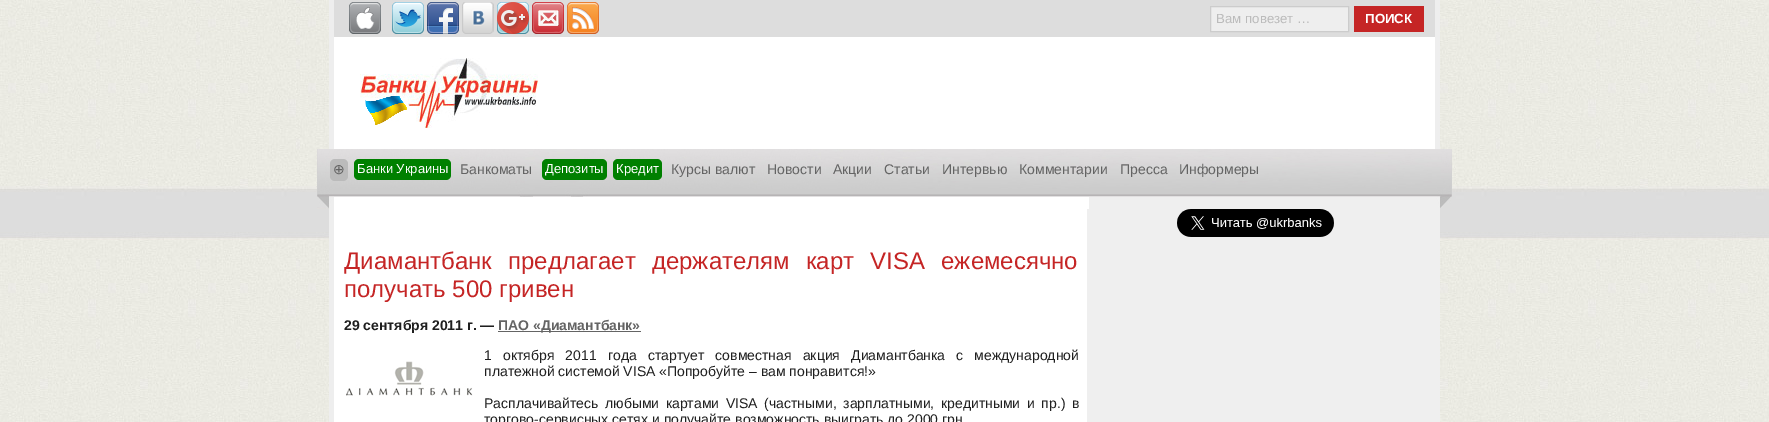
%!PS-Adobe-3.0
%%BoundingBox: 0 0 1769 422
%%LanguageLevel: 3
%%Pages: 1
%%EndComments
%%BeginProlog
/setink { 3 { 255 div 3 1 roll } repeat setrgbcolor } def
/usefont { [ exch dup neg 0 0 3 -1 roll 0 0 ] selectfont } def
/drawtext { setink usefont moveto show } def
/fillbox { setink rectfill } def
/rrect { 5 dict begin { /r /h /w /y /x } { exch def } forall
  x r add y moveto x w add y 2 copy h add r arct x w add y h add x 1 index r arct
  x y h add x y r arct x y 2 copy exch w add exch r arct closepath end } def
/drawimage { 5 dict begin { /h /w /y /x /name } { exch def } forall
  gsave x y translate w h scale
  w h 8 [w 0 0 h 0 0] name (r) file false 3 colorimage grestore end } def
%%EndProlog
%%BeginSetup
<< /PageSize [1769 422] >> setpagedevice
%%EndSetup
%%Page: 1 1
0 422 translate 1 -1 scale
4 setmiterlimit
0 0 1769 422 255 255 255 fillbox
(assets/img1.rgb) 0 0 1769 422 drawimage
334 0 1101 37 221 221 221 fillbox
1435 0 5 149 238 238 238 fillbox
329 0 5 149 238 238 238 fillbox
(assets/img2.rgb) 349 2 32 32 drawimage
(assets/img3.rgb) 392 2 32 32 drawimage
(assets/img4.rgb) 427 2 32 32 drawimage
(assets/img5.rgb) 462 2 32 32 drawimage
(assets/img3.rgb) 497 2 32 32 drawimage
(assets/img6.rgb) 497 2 32 32 drawimage
(assets/img7.rgb) 532 2 32 32 drawimage
(assets/img8.rgb) 567 2 32 32 drawimage
1210.5 6.5 moveto 1348.5 6.5 lineto 1348.5 31.5 lineto 1210.5 31.5 lineto closepath gsave fill grestore
204 204 204 setink
stroke
(Вам повезет …) 1216 23 /LiberationSans-Regular 13.25 187 187 187 drawtext
1354 6 70 26 197 37 37 fillbox
(ПОИСК) 1365 23 /LiberationSans-Bold 13.25 255 255 255 drawtext
334 37 1101 112 255 255 255 fillbox
(assets/img9.rgb) 360 58 178 70 drawimage
(assets/img10.rgb) 317 149 1135 60 drawimage
187 187 187 setink
330 159 18 22 5 rrect fill
(⊕) 333 174 /DejaVuSans-Regular 14 100 100 100 drawtext
0 128 0 setink
354 159 97 21 5 rrect fill
(Банки Украины) 357 173 /LiberationSans-Regular 13 255 255 255 drawtext
(Банкоматы) 460 174 /LiberationSans-Regular 14 100 100 100 drawtext
0 128 0 setink
542 159 65 21 5 rrect fill
(Депозиты) 545 173 /LiberationSans-Regular 13 255 255 255 drawtext
0 128 0 setink
613 159 49 21 5 rrect fill
(Кредит) 616 173 /LiberationSans-Regular 13 255 255 255 drawtext
(Курсы валют) 671 174 /LiberationSans-Regular 14 100 100 100 drawtext
(Новости) 767 174 /LiberationSans-Regular 14 100 100 100 drawtext
(Акции) 833 174 /LiberationSans-Regular 14 100 100 100 drawtext
(Статьи) 884 174 /LiberationSans-Regular 14 100 100 100 drawtext
(Интервью) 942 174 /LiberationSans-Regular 14 100 100 100 drawtext
(Комментарии) 1019 174 /LiberationSans-Regular 14 100 100 100 drawtext
(Пресса) 1120 174 /LiberationSans-Regular 14 100 100 100 drawtext
(Информеры) 1179 174 /LiberationSans-Regular 14 100 100 100 drawtext
334 209 753 213 255 255 255 fillbox
1087 209 353 213 239 239 239 fillbox
329 209 5 213 238 238 238 fillbox
(assets/img11.rgb) 1177 209 157 28 drawimage
/LiberationSans-Regular 24 usefont
197 37 37 setink
344 269 moveto 9.5 0 32 (Диамантбанк предлагает держателям карт VISA ежемесячно) widthshow
(получать 500 гривен) 344 297 /LiberationSans-Regular 24 197 37 37 drawtext
(29 сентября 2011 г. —) 344 330 /LiberationSans-Bold 14 31 31 31 drawtext
498 331 143 1 100 100 100 fillbox
(ПАО «Диамантбанк») 498 330 /LiberationSans-Bold 14 100 100 100 drawtext
/LiberationSans-Regular 14 usefont
31 31 31 setink
484 360 moveto 7.25 0 32 (1 октября 2011 года стартует совместная акция Диамантбанка с международной) widthshow
(assets/img12.rgb) 346 361 127 35 drawimage
(платежной системой VISA «Попробуйте – вам понравится!») 484 376 /LiberationSans-Regular 14 31 31 31 drawtext
484 408 moveto 2.75 0 32 (Расплачивайтесь любыми картами VISA \(частными, зарплатными, кредитными и пр.\) в) widthshow
(торгово-сервисных сетях и получайте возможность выиграть до 2000 грн) 484 424 /LiberationSans-Regular 14 31 31 31 drawtext
showpage
%%EOF
